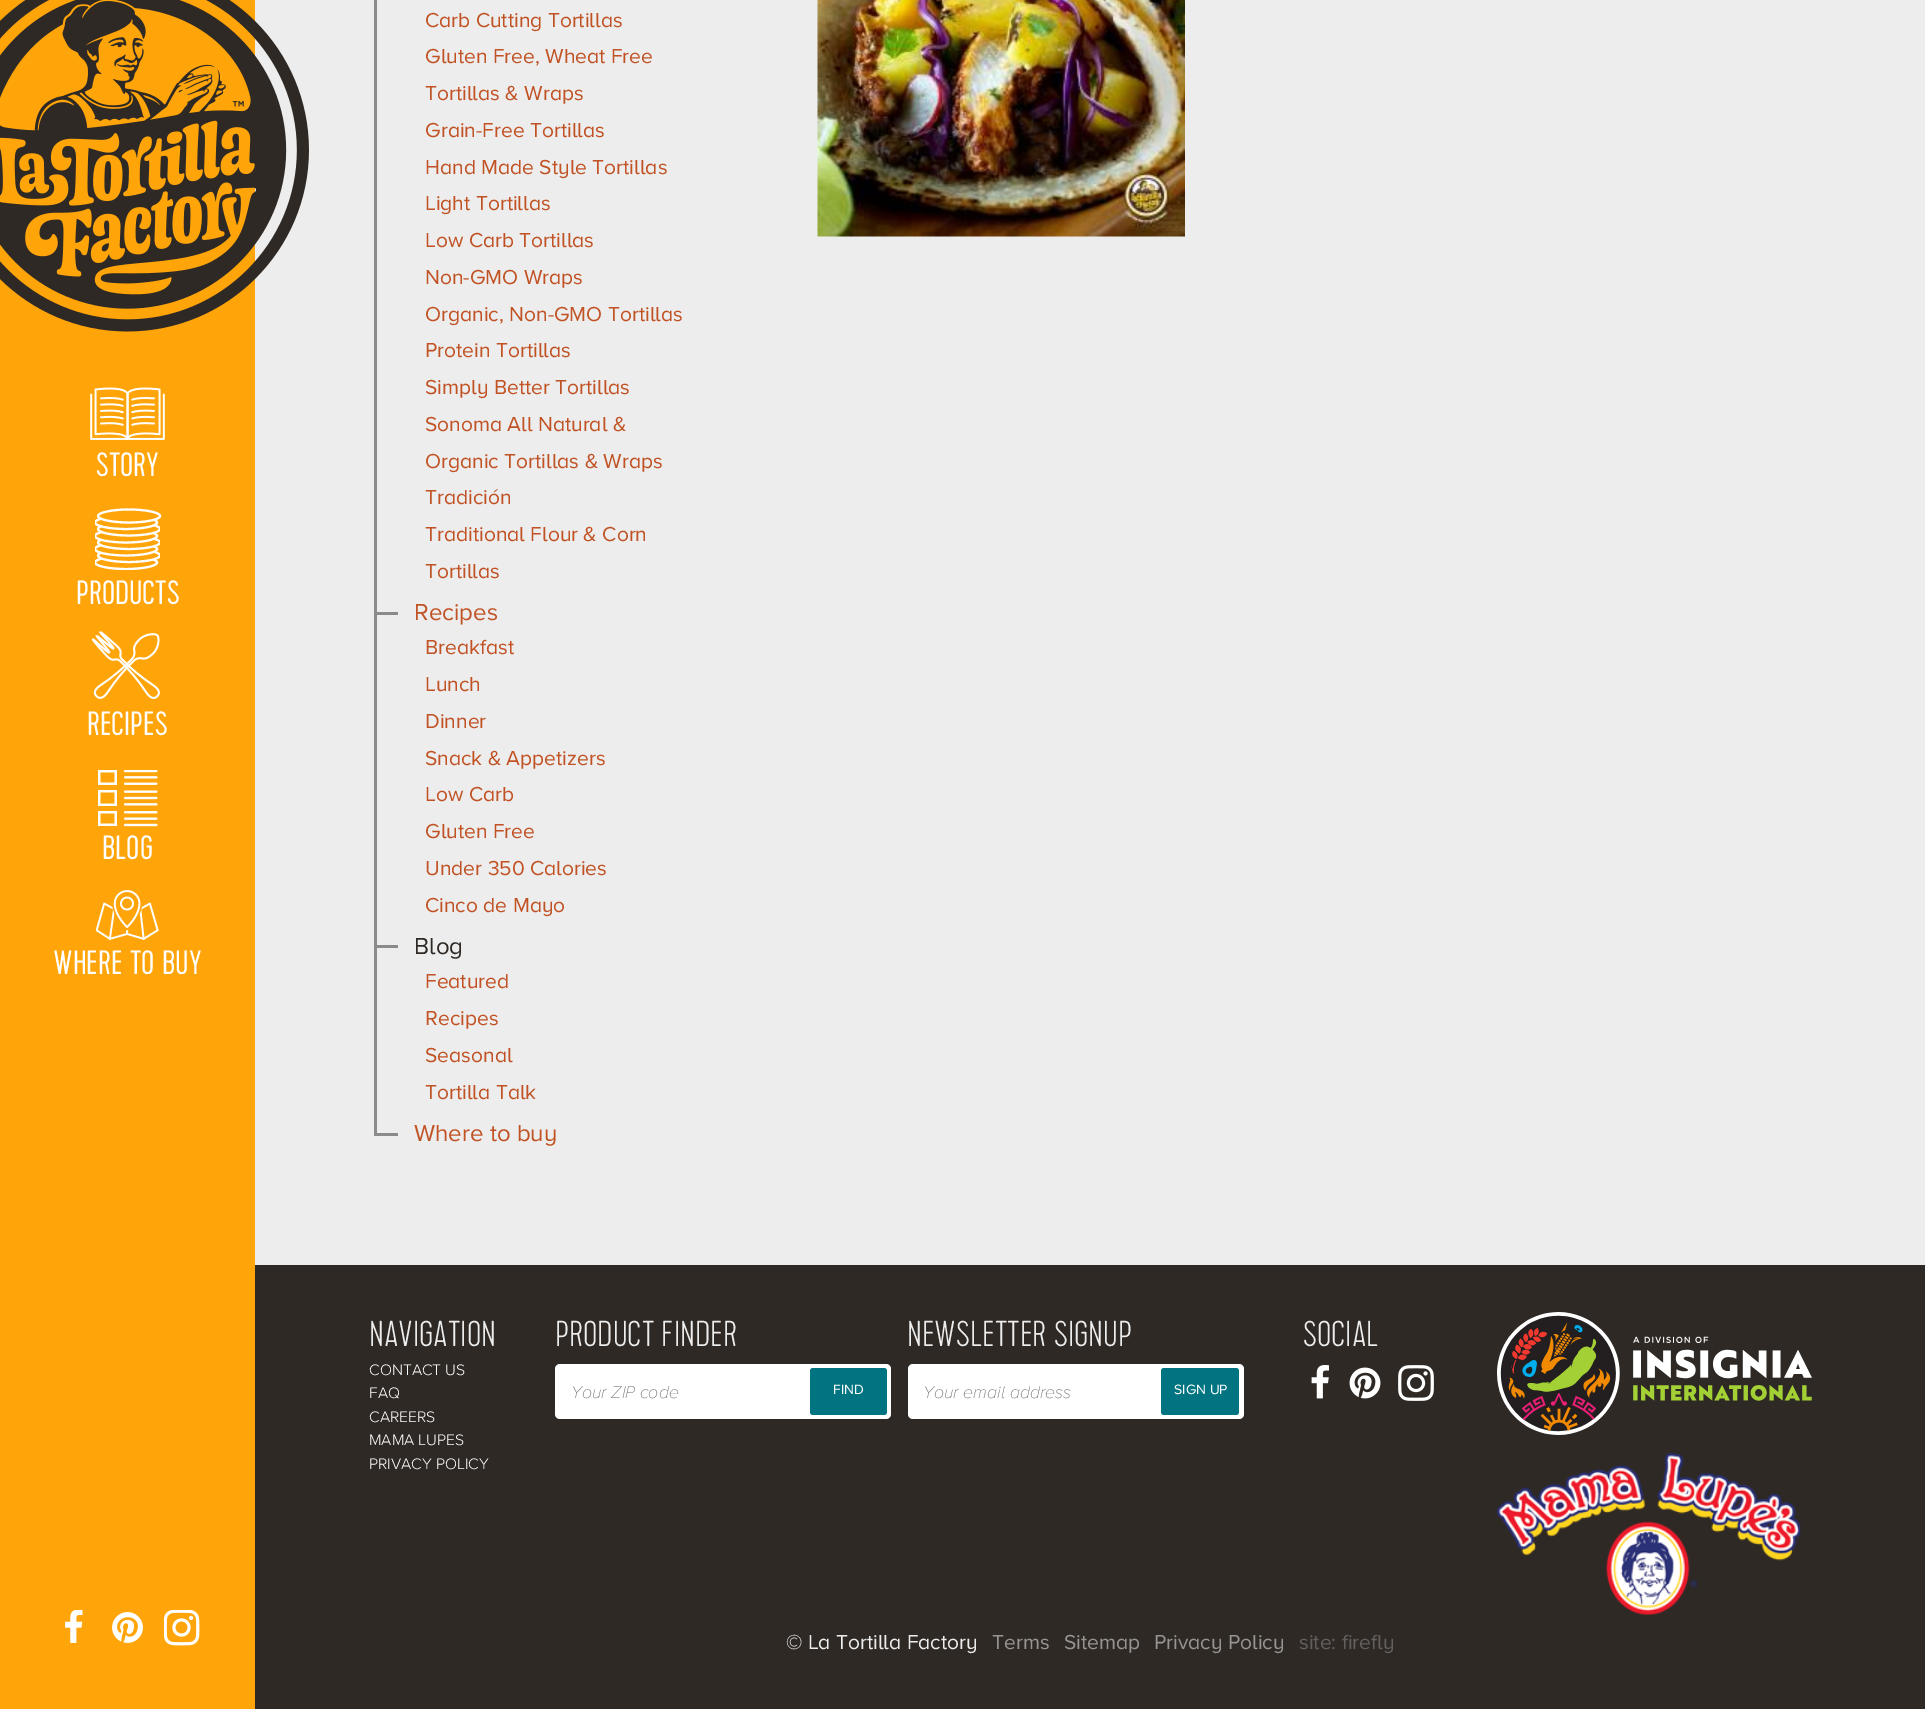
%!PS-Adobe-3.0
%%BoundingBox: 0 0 1925 1709
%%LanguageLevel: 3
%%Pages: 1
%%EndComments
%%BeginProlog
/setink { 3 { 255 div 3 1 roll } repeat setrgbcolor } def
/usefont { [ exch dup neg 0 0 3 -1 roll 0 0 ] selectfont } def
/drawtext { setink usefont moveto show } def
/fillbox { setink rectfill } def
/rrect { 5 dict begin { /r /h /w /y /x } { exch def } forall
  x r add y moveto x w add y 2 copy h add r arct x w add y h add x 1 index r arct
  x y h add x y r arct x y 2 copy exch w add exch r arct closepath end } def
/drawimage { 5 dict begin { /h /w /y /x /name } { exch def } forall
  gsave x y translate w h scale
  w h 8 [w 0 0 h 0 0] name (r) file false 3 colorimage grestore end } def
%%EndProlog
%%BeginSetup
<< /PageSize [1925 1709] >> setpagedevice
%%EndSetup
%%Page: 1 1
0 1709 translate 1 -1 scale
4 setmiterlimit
0 0 1925 1709 237 237 237 fillbox
0 0 255 1709 255 164 9 fillbox
(assets/img1.rgb) 0 0 309 332 drawimage
(assets/img2.rgb) 90 387 75 53 drawimage
(STORY) 96 476 /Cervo-Light 33.75 255 255 255 drawtext
gsave
95 500 67 72 rectclip
158.5 557.5 moveto 154 561 142 563.5 127.5 563.5 curveto 113 563.5 101 561 96.5 557.5 curveto 94.5 557.5 lineto 94.5 570 lineto 160 570 lineto 160 557.5 lineto closepath clip newpath
2.1 setlinewidth
126 556 moveto 143 556 157 559 157 562.5 curveto 157 566 143 569 126 569 curveto 109 569 95 566 95 562.5 curveto 95 559 109 556 126 556 curveto closepath stroke
grestore
gsave
158.5 551 moveto 154 554 142 556.5 127.5 556.5 curveto 113 556.5 101 554 96.5 551 curveto 94.5 551 lineto 94.5 563.5 lineto 160 563.5 lineto 160 551 lineto closepath clip newpath
2.1 setlinewidth
129 549 moveto 146 549 160 552 160 555.5 curveto 160 559 146 562 129 562 curveto 112 562 98 559 98 555.5 curveto 98 552 112 549 129 549 curveto closepath stroke
grestore
gsave
95 500 67 72 rectclip
158.5 544.5 moveto 154 547.5 142 550 127.5 550 curveto 113 550 101 547.5 96.5 544.5 curveto 94.5 544.5 lineto 94.5 557 lineto 160 557 lineto 160 544.5 lineto closepath clip newpath
2.1 setlinewidth
126 542.5 moveto 143 542.5 157 545.5 157 549 curveto 157 552.5 143 555.5 126 555.5 curveto 109 555.5 95 552.5 95 549 curveto 95 545.5 109 542.5 126 542.5 curveto closepath stroke
grestore
gsave
158.5 537.5 moveto 154 541 142 543.5 127.5 543.5 curveto 113 543.5 101 541 96.5 537.5 curveto 94.5 537.5 lineto 94.5 550.5 lineto 160 550.5 lineto 160 537.5 lineto closepath clip newpath
2.1 setlinewidth
129 536 moveto 146 536 160 539 160 542.5 curveto 160 546 146 549 129 549 curveto 112 549 98 546 98 542.5 curveto 98 539 112 536 129 536 curveto closepath stroke
grestore
gsave
95 500 67 72 rectclip
158.5 531 moveto 154 534.5 142 537 127.5 537 curveto 113 537 101 534.5 96.5 531 curveto 94.5 531 lineto 94.5 543.5 lineto 160 543.5 lineto 160 531 lineto closepath clip newpath
2.1 setlinewidth
126 529.5 moveto 143 529.5 157 532.5 157 536 curveto 157 539.5 143 542.5 126 542.5 curveto 109 542.5 95 539.5 95 536 curveto 95 532.5 109 529.5 126 529.5 curveto closepath stroke
grestore
gsave
158.5 524.5 moveto 154 528 142 530.5 127.5 530.5 curveto 113 530.5 101 528 96.5 524.5 curveto 94.5 524.5 lineto 94.5 537 lineto 160 537 lineto 160 524.5 lineto closepath clip newpath
2.1 setlinewidth
129 522.5 moveto 146 522.5 160 525.5 160 529 curveto 160 532.5 146 535.5 129 535.5 curveto 112 535.5 98 532.5 98 529 curveto 98 525.5 112 522.5 129 522.5 curveto closepath stroke
grestore
gsave
95 500 67 72 rectclip
158.5 518 moveto 154 521 142 523.5 127.5 523.5 curveto 113 523.5 101 521 96.5 518 curveto 94.5 518 lineto 94.5 530.5 lineto 160 530.5 lineto 160 518 lineto closepath clip newpath
2.1 setlinewidth
126 516 moveto 143 516 157 519 157 522.5 curveto 157 526 143 529 126 529 curveto 109 529 95 526 95 522.5 curveto 95 519 109 516 126 516 curveto closepath stroke
grestore
2.1 setlinewidth
129 509.5 moveto 146 509.5 160 512.5 160 516 curveto 160 519.5 146 522.5 129 522.5 curveto 112 522.5 98 519.5 98 516 curveto 98 512.5 112 509.5 129 509.5 curveto closepath stroke
(PRODUCTS) 76 604 /Cervo-Light 33.75 255 255 255 drawtext
(assets/img3.rgb) 91 631 69 68 drawimage
(RECIPES) 87 735 /Cervo-Light 33.75 255 255 255 drawtext
(assets/img4.rgb) 98 770 60 57 drawimage
(BLOG) 102 859 /Cervo-Light 33.75 255 255 255 drawtext
(assets/img5.rgb) 96 890 63 50 drawimage
(WHERE TO BUY) 53 974 /Cervo-Light 33.75 255 255 255 drawtext
(assets/img6.rgb) 65 1610 18 33 drawimage
(assets/img7.rgb) 112 1612 31 31 drawimage
(assets/img8.rgb) 164 1610 36 36 drawimage
374 0 3 1076 141 139 137 fillbox
(Carb Cutting Tortillas) 425 27 /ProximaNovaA-Regular 21 193 82 36 drawtext
(Gluten Free, Wheat Free) 425 63 /ProximaNovaA-Regular 21 193 82 36 drawtext
(Tortillas & Wraps) 425 100 /ProximaNovaA-Regular 21 193 82 36 drawtext
(Grain-Free Tortillas) 425 137 /ProximaNovaA-Regular 21 193 82 36 drawtext
(Hand Made Style Tortillas) 425 174 /ProximaNovaA-Regular 21 193 82 36 drawtext
(Light Tortillas) 425 210 /ProximaNovaA-Regular 21 193 82 36 drawtext
(Low Carb Tortillas) 425 247 /ProximaNovaA-Regular 21 193 82 36 drawtext
(Non-GMO Wraps) 425 284 /ProximaNovaA-Regular 21 193 82 36 drawtext
(Organic, Non-GMO Tortillas) 425 321 /ProximaNovaA-Regular 21 193 82 36 drawtext
(Protein Tortillas) 425 357 /ProximaNovaA-Regular 21 193 82 36 drawtext
(Simply Better Tortillas) 425 394 /ProximaNovaA-Regular 21 193 82 36 drawtext
(Sonoma All Natural &) 425 431 /ProximaNovaA-Regular 21 193 82 36 drawtext
(Organic Tortillas & Wraps) 425 468 /ProximaNovaA-Regular 21 193 82 36 drawtext
(Tradición) 425 504 /ProximaNovaA-Regular 21 193 82 36 drawtext
(Traditional Flour & Corn) 425 541 /ProximaNovaA-Regular 21 193 82 36 drawtext
(Tortillas) 425 578 /ProximaNovaA-Regular 21 193 82 36 drawtext
375 612 23 3 141 139 137 fillbox
(Recipes) 414 620 /ProximaNovaA-Regular 24 193 82 36 drawtext
(Breakfast) 425 654 /ProximaNovaA-Regular 21 193 82 36 drawtext
(Lunch) 425 691 /ProximaNovaA-Regular 21 193 82 36 drawtext
(Dinner) 425 728 /ProximaNovaA-Regular 21 193 82 36 drawtext
(Snack & Appetizers) 425 765 /ProximaNovaA-Regular 21 193 82 36 drawtext
(Low Carb) 425 801 /ProximaNovaA-Regular 21 193 82 36 drawtext
(Gluten Free) 425 838 /ProximaNovaA-Regular 21 193 82 36 drawtext
(Under 350 Calories) 425 875 /ProximaNovaA-Regular 21 193 82 36 drawtext
(Cinco de Mayo) 425 912 /ProximaNovaA-Regular 21 193 82 36 drawtext
375 945 23 3 141 139 137 fillbox
(Blog) 414 954 /ProximaNovaA-Regular 24 46 41 37 drawtext
(Featured) 425 988 /ProximaNovaA-Regular 21 193 82 36 drawtext
(Recipes) 425 1025 /ProximaNovaA-Regular 21 193 82 36 drawtext
(Seasonal) 425 1062 /ProximaNovaA-Regular 21 193 82 36 drawtext
(Tortilla Talk) 425 1099 /ProximaNovaA-Regular 21 193 82 36 drawtext
375 1133 23 3 141 139 137 fillbox
374 1076 3 60 141 139 137 fillbox
(Where to buy) 414 1141 /ProximaNovaA-Regular 24 193 82 36 drawtext
(assets/img9.rgb) 817 0 368 237 drawimage
255 1265 1670 444 46 41 37 fillbox
(NAVIGATION) 369 1346 /Cervo-Thin 36 237 237 237 drawtext
(CONTACT US) 369 1375 /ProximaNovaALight-Light 15.75 255 255 255 drawtext
(FAQ) 369 1398 /ProximaNovaALight-Light 15.75 255 255 255 drawtext
(CAREERS) 369 1422 /ProximaNovaALight-Light 15.75 255 255 255 drawtext
(MAMA LUPES) 369 1445 /ProximaNovaALight-Light 15.75 255 255 255 drawtext
(PRIVACY POLICY) 369 1469 /ProximaNovaALight-Light 15.75 255 255 255 drawtext
(PRODUCT FINDER) 555 1346 /Cervo-Thin 36 237 237 237 drawtext
255 255 255 setink
555 1364 336 55 5 rrect fill
(Your ZIP code) 571 1398 /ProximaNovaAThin-ThinItalic 17.75 102 102 102 drawtext
0 116 129 setink
810 1368 77 47 3 rrect fill
(FIND) 833 1394 /ProximaNovaA-Regular 14 255 255 255 drawtext
(NEWSLETTER SIGNUP) 907 1346 /Cervo-Thin 36 237 237 237 drawtext
255 255 255 setink
908 1364 336 55 5 rrect fill
(Your email address) 923 1398 /ProximaNovaAThin-ThinItalic 17.75 102 102 102 drawtext
0 116 129 setink
1161 1368 78 47 3 rrect fill
(SIGN UP) 1174 1394 /ProximaNovaA-Regular 14 255 255 255 drawtext
(SOCIAL) 1303 1346 /Cervo-Thin 36 237 237 237 drawtext
(assets/img10.rgb) 1311 1365 18 34 drawimage
(assets/img11.rgb) 1349 1367 32 32 drawimage
(assets/img12.rgb) 1398 1365 36 36 drawimage
(assets/img13.rgb) 1497 1312 315 123 drawimage
(assets/img14.rgb) 1497 1453 304 162 drawimage
(© La Tortilla Factory) 786 1649 /ProximaNovaA-Regular 21 237 237 237 drawtext
(Terms) 992 1649 /ProximaNovaA-Regular 21 151 148 146 drawtext
(Sitemap) 1064 1649 /ProximaNovaA-Regular 21 151 148 146 drawtext
(Privacy Policy) 1154 1649 /ProximaNovaA-Regular 21 151 148 146 drawtext
(site: firefly) 1299 1649 /ProximaNovaA-Regular 21 99 95 92 drawtext
showpage
%%EOF
